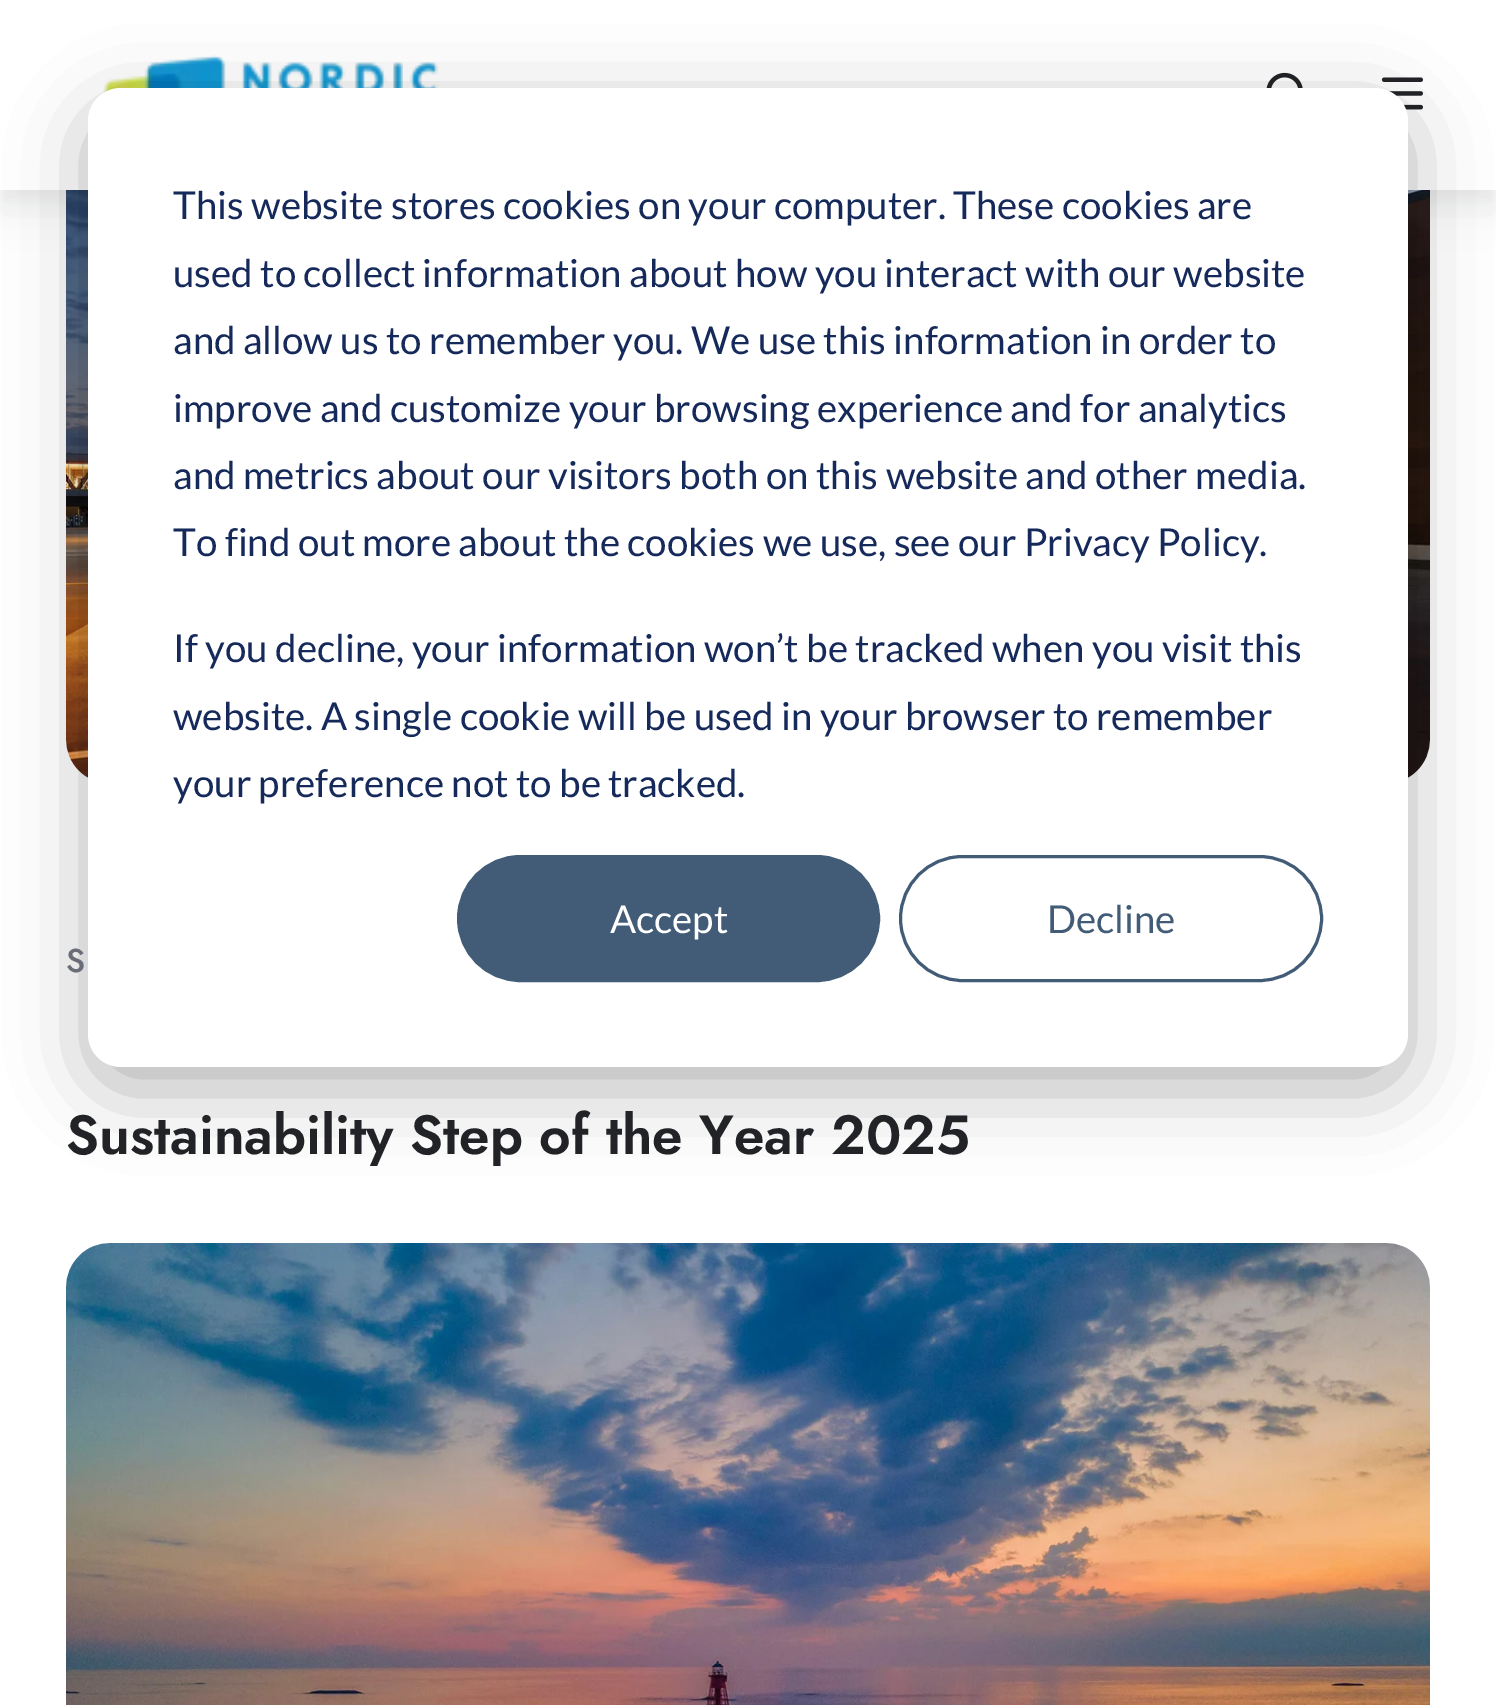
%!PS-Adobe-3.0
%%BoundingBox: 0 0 1496 1705
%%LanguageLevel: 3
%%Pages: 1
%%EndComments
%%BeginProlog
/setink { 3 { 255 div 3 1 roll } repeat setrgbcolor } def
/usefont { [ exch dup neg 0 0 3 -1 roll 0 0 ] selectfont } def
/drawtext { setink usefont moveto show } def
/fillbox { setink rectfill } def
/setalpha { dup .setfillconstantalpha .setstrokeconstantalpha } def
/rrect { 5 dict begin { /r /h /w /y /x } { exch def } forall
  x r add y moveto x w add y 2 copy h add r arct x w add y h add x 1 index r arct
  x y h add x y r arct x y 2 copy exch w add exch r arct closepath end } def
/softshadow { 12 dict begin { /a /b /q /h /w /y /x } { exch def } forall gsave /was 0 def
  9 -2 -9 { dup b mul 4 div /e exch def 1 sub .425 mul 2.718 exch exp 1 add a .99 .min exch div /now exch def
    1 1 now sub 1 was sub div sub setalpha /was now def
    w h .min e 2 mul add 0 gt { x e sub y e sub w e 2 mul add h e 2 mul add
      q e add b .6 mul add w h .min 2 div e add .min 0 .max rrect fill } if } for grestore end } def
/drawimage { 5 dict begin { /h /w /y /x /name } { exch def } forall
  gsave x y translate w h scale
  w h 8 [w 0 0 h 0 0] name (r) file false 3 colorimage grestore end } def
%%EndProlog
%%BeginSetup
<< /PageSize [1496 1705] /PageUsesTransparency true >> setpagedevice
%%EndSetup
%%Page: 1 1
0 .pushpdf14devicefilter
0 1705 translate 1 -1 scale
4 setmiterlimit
0 0 1496 1705 255 255 255 fillbox
(assets/img4.rgb) 66 190 1364 588 drawimage
34 35 38 setink
0 11 1496 190 0 11 0.05 softshadow
0 22 1496 190 0 22 0.05 softshadow
0 0 1496 190 255 255 255 fillbox
(assets/img1.rgb) 103 55 336 39 drawimage
(assets/img2.rgb) 1266 72 37 16 drawimage
(assets/img3.rgb) 1381 77 42 33 drawimage
0 0 0 setink
88 110 1320 979 33 38.5 0.28 softshadow
255 255 255 setink
88 88 1320 979 33 rrect fill
(This website stores cookies on your computer. These cookies are) 173 219 /Lato-Regular 38.5 21 41 90 drawtext
(used to collect information about how you interact with our website) 173 287 /Lato-Regular 38.5 21 41 90 drawtext
(and allow us to remember you. We use this information in order to) 173 354 /Lato-Regular 38.5 21 41 90 drawtext
(improve and customize your browsing experience and for analytics) 173 422 /Lato-Regular 38.5 21 41 90 drawtext
(and metrics about our visitors both on this website and other media.) 173 489 /Lato-Regular 38.5 21 41 90 drawtext
(To find out more about the cookies we use, see our Privacy Policy.) 173 556 /Lato-Regular 38.5 21 41 90 drawtext
(If you decline, your information won’t be tracked when you visit this) 173 662 /Lato-Regular 38.5 21 41 90 drawtext
(website. A single cookie will be used in your browser to remember) 173 730 /Lato-Regular 38.5 21 41 90 drawtext
(your preference not to be tracked.) 173 797 /Lato-Regular 38.5 21 41 90 drawtext
66 91 118 setink
458.5 856.5 420 124 62 rrect gsave fill grestore
3 setlinewidth
stroke
(Accept) 610 933 /Lato-Regular 38.5 255 255 255 drawtext
66 91 118 setink
900.5 856.5 421 124 62 rrect stroke
(Decline) 1047 933 /Lato-Regular 38.5 66 91 118 drawtext
/Jost-Medium 33 usefont
106 109 119 setink
66 972 moveto 3 0 (S) ashow
(Sustainability Step of the Year 2025) 66 1154 /Jost-SemiBold 55 34 35 38 drawtext
(assets/img5.rgb) 66 1243 1364 462 drawimage
.poppdf14devicefilter showpage
%%EOF
